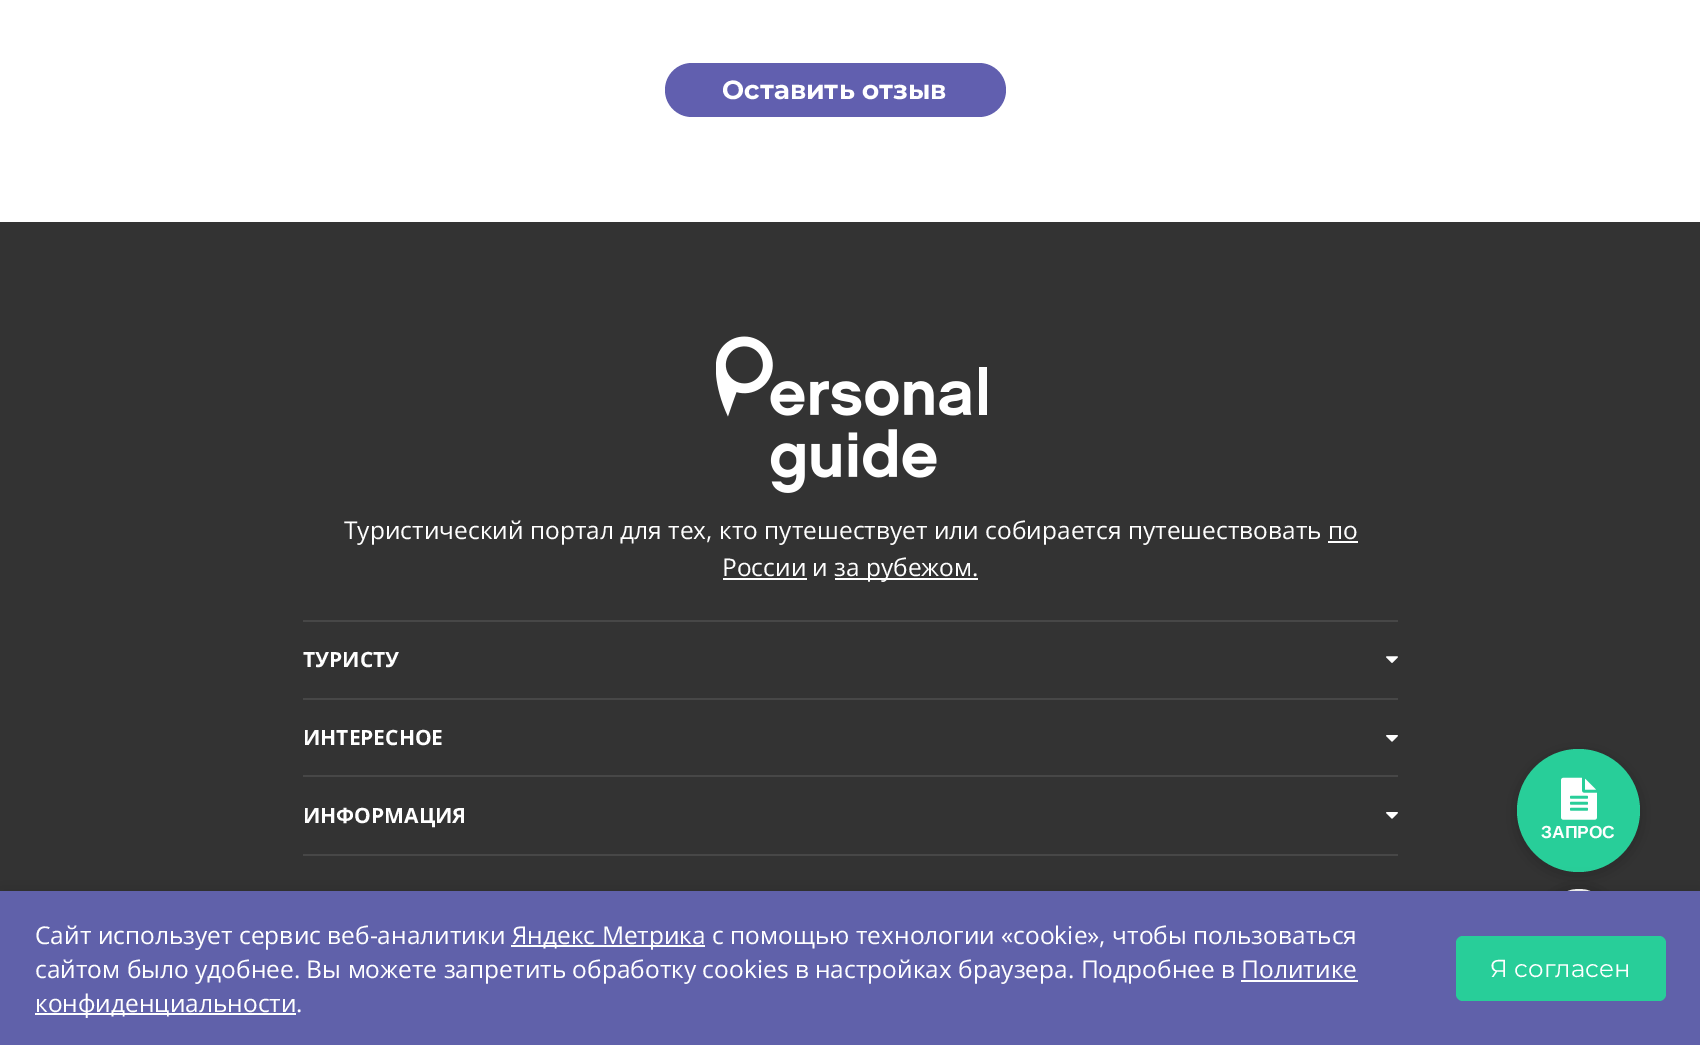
%!PS-Adobe-3.0
%%BoundingBox: 0 0 1700 1045
%%LanguageLevel: 3
%%Pages: 1
%%EndComments
%%BeginProlog
/setink { 3 { 255 div 3 1 roll } repeat setrgbcolor } def
/usefont { [ exch dup neg 0 0 3 -1 roll 0 0 ] selectfont } def
/drawtext { setink usefont moveto show } def
/fillbox { setink rectfill } def
/setalpha { dup .setfillconstantalpha .setstrokeconstantalpha } def
/disc { newpath 0 360 arc closepath } def
/rrect { 5 dict begin { /r /h /w /y /x } { exch def } forall
  x r add y moveto x w add y 2 copy h add r arct x w add y h add x 1 index r arct
  x y h add x y r arct x y 2 copy exch w add exch r arct closepath end } def
/softshadow { 12 dict begin { /a /b /q /h /w /y /x } { exch def } forall gsave /was 0 def
  9 -2 -9 { dup b mul 4 div /e exch def 1 sub .425 mul 2.718 exch exp 1 add a .99 .min exch div /now exch def
    1 1 now sub 1 was sub div sub setalpha /was now def
    w h .min e 2 mul add 0 gt { x e sub y e sub w e 2 mul add h e 2 mul add
      q e add b .6 mul add w h .min 2 div e add .min 0 .max rrect fill } if } for grestore end } def
/drawimage { 5 dict begin { /h /w /y /x /name } { exch def } forall
  gsave x y translate w h scale
  w h 8 [w 0 0 h 0 0] name (r) file false 3 colorimage grestore end } def
%%EndProlog
%%BeginSetup
<< /PageSize [1700 1045] /PageUsesTransparency true >> setpagedevice
%%EndSetup
%%Page: 1 1
0 .pushpdf14devicefilter
0 1045 translate 1 -1 scale
4 setmiterlimit
0 0 1700 1045 255 255 255 fillbox
97 95 175 setink
665 63 341 54 27 rrect fill
(Оставить отзыв) 722 99 /Montserrat-Bold 26.25 255 255 255 drawtext
0 222 1700 669 51 51 51 fillbox
(assets/img1.rgb) 716 336 271 157 drawimage
(Туристический портал для тех, кто путешествует или собирается путешествовать по) 344 539 /OpenSans-Regular 24.5 255 255 255 drawtext
(России и) 722 576 /OpenSans-Regular 24.5 255 255 255 drawtext
1328 541 30 2 255 255 255 fillbox
723 578 84 2 255 255 255 fillbox
835 578 143 2 255 255 255 fillbox
(за рубежом.) 834 576 /OpenSans-Regular 24.5 255 255 255 drawtext
303 620 1095 2 71 71 71 fillbox
(ТУРИСТУ) 303 667 /OpenSans-Bold 21 255 255 255 drawtext
(assets/img2.rgb) 1386 656 12 7 drawimage
303 698 1095 2 71 71 71 fillbox
(ИНТЕРЕСНОЕ) 303 745 /OpenSans-Bold 21 255 255 255 drawtext
(assets/img3.rgb) 1386 735 12 7 drawimage
303 775 1095 2 71 71 71 fillbox
(ИНФОРМАЦИЯ) 303 823 /OpenSans-Bold 21 255 255 255 drawtext
(assets/img3.rgb) 1386 812 12 7 drawimage
303 854 1095 2 71 71 71 fillbox
0 0 0 setink
1549 900 59 59 29.5 9 1 softshadow
255 255 255 setink
4 setlinewidth
1579 924 33 disc stroke
0 0 0 setink
1517 753 123 122 61 9 0.2 softshadow
40 206 153 setink
1578.5 810.5 61.5 disc fill
(assets/img4.rgb) 1561 777 36 43 drawimage
(ЗАПРОС) 1541 838 /LiberationSans-Bold 17.5 255 255 255 drawtext
0 0 0 setink
0 887 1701 156 0 9 0.1 softshadow
0 891 1700 154 96 97 170 fillbox
(Сайт использует сервис веб-аналитики) 35 944 /OpenSans-Regular 24.5 255 255 255 drawtext
511 945 194 2 255 255 255 fillbox
(Яндекс Метрика с помощью технологии «cookie», чтобы пользоваться) 512 944 /OpenSans-Regular 24.5 255 255 255 drawtext
(сайтом было удобнее. Вы можете запретить обработку cookies в настройках браузера. Подробнее в Политике) 35 978 /OpenSans-Regular 24.5 255 255 255 drawtext
35 1013 261 2 255 255 255 fillbox
(конфиденциальности.) 35 1012 /OpenSans-Regular 24.5 255 255 255 drawtext
1241 980 117 2 255 255 255 fillbox
40 206 153 setink
1456 936 210 65 7 rrect fill
(Я согласен) 1490 977 /Montserrat-Regular 24.5 255 255 255 drawtext
.poppdf14devicefilter showpage
%%EOF
